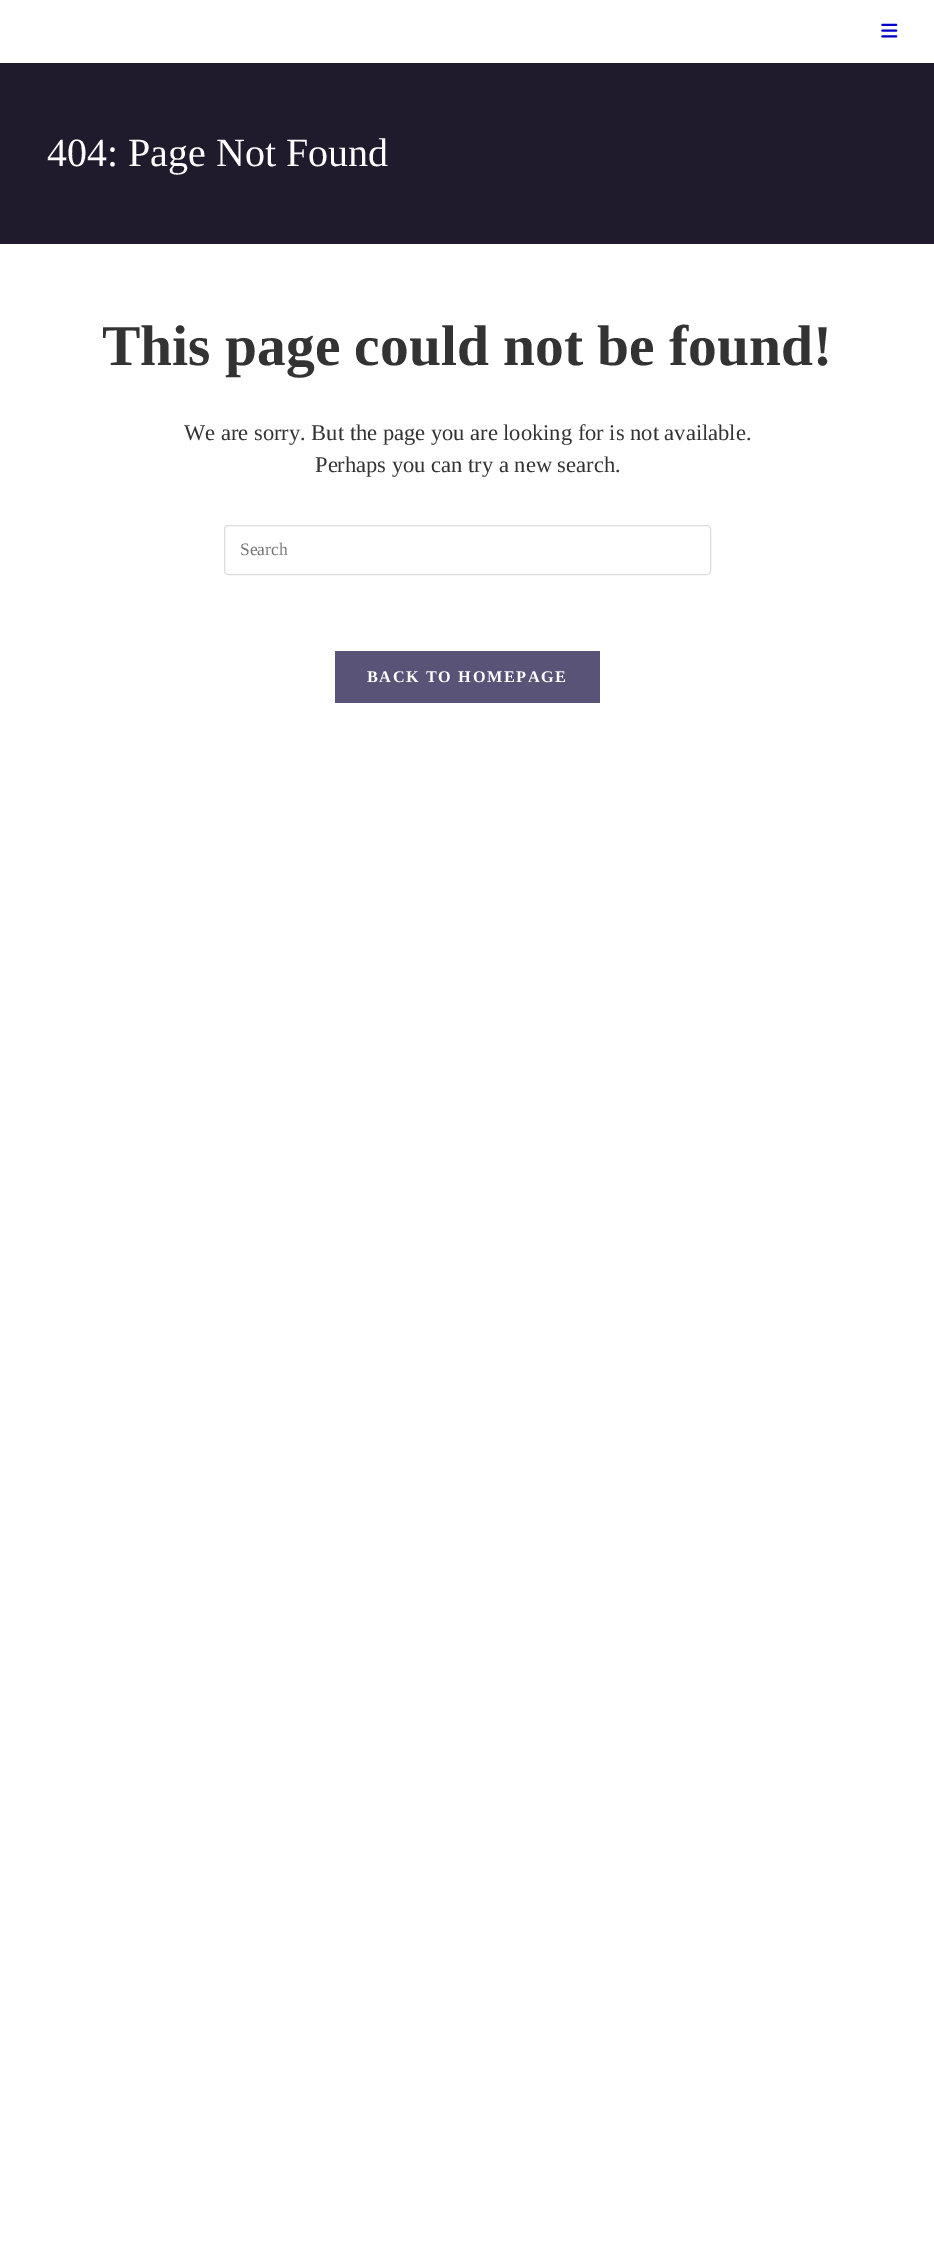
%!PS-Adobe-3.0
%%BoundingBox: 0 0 934 2242
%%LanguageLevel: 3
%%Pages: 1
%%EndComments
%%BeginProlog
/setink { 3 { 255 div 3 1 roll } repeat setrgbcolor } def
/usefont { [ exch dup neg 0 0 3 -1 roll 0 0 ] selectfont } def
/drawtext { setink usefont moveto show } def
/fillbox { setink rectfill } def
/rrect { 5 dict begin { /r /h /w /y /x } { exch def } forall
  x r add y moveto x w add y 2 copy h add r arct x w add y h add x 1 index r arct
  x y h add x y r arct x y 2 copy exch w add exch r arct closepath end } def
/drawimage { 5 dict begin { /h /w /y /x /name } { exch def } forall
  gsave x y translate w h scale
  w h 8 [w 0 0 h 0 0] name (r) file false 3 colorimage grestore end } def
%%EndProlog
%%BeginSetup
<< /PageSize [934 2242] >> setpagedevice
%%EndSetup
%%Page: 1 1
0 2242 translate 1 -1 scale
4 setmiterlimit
0 0 934 2242 255 255 255 fillbox
(assets/img1.rgb) 881 23 17 15 drawimage
0 63 934 181 31 27 44 fillbox
(404: Page Not Found) 47 166 /LiberationSerif-Regular 40 255 255 255 drawtext
(This page could not be found!) 102 365 /LiberationSerif-Bold 57.5 51 51 51 drawtext
(We are sorry. But the page you are looking for is not available.) 184 440 /LiberationSerif-Regular 22.5 51 51 51 drawtext
(Perhaps you can try a new search.) 315 472 /LiberationSerif-Regular 22.5 51 51 51 drawtext
221 221 221 setink
224.5 525.5 486 49 3.5 rrect stroke
(Search) 240 555 /LiberationSerif-Regular 17.5 117 117 117 drawtext
335 651 265 52 90 83 120 fillbox
/LiberationSerif-Bold 16.25 usefont
255 255 255 setink
367 682 moveto 1.6 0 (BACK TO HOMEPAGE) ashow
showpage
%%EOF
